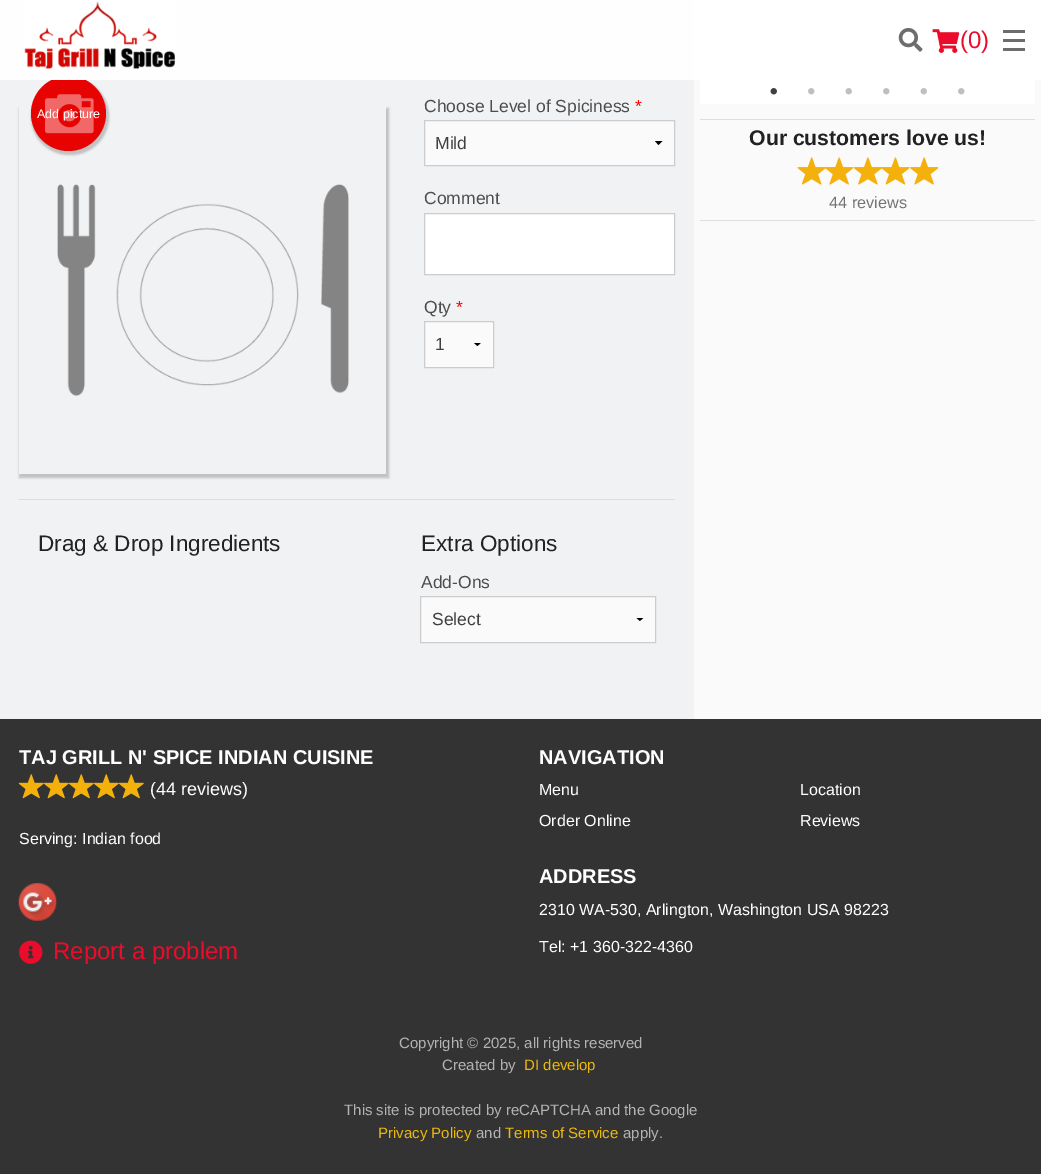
%!PS-Adobe-3.0
%%BoundingBox: 0 0 1041 1174
%%LanguageLevel: 3
%%Pages: 1
%%EndComments
%%BeginProlog
/setink { 3 { 255 div 3 1 roll } repeat setrgbcolor } def
/usefont { [ exch dup neg 0 0 3 -1 roll 0 0 ] selectfont } def
/drawtext { setink usefont moveto show } def
/fillbox { setink rectfill } def
/setalpha { dup .setfillconstantalpha .setstrokeconstantalpha } def
/disc { newpath 0 360 arc closepath } def
/rrect { 5 dict begin { /r /h /w /y /x } { exch def } forall
  x r add y moveto x w add y 2 copy h add r arct x w add y h add x 1 index r arct
  x y h add x y r arct x y 2 copy exch w add exch r arct closepath end } def
/softshadow { 12 dict begin { /a /b /q /h /w /y /x } { exch def } forall gsave /was 0 def
  9 -2 -9 { dup b mul 4 div /e exch def 1 sub .425 mul 2.718 exch exp 1 add a .99 .min exch div /now exch def
    1 1 now sub 1 was sub div sub setalpha /was now def
    w h .min e 2 mul add 0 gt { x e sub y e sub w e 2 mul add h e 2 mul add
      q e add b .6 mul add w h .min 2 div e add .min 0 .max rrect fill } if } for grestore end } def
/drawimage { 5 dict begin { /h /w /y /x /name } { exch def } forall
  gsave x y translate w h scale
  w h 8 [w 0 0 h 0 0] name (r) file false 3 colorimage grestore end } def
%%EndProlog
%%BeginSetup
<< /PageSize [1041 1174] /PageUsesTransparency true >> setpagedevice
%%EndSetup
%%Page: 1 1
0 .pushpdf14devicefilter
0 1174 translate 1 -1 scale
4 setmiterlimit
0 0 1041 1174 241 242 243 fillbox
0 0 0 setink
31 78 78 77 38.5 1 0.2 softshadow
gsave
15 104 moveto 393 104 lineto 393 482 lineto 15 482 lineto closepath 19 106 moveto 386 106 lineto 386 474 lineto 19 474 lineto closepath eoclip newpath
19 108 370 370 0 1 0.2 softshadow
grestore
230 3 1 setink
68.5 113.5 37.5 disc fill
694 0 347 719 250 250 250 fillbox
700 0 335 104 255 255 255 fillbox
0.95 setalpha
0 0 1041 80 255 255 255 fillbox
52 76 33 4 255 255 255 fillbox
1 setalpha
(assets/img1.rgb) 24 1 151 68 drawimage
(assets/img2.rgb) 898 28 25 24 drawimage
(assets/img3.rgb) 932 29 28 24 drawimage
(\(0\)) 960 48 /LiberationSans-Regular 24 235 12 43 drawtext
1003 48 22 3 109 109 109 fillbox
1003 39 22 3 109 109 109 fillbox
1003 30 22 3 109 109 109 fillbox
(assets/img4.rgb) 57 184 292 212 drawimage
(assets/img5.rgb) 45 94 49 40 drawimage
(Add picture) 37 118 /LiberationSans-Regular 12.5 255 255 255 drawtext
(Choose Level of Spiciness) 424 112 /LiberationSans-Regular 17.5 77 77 77 drawtext
(*) 635 112 /LiberationSans-Regular 17.5 255 0 0 drawtext
425 121 249 44 250 250 250 fillbox
0 0 0 setink
662.5 141 moveto 658.5 145 lineto 655 141 lineto closepath fill
204 204 204 setink
424.5 120.5 250 45 rectstroke
(Mild) 435 149 /LiberationSans-Regular 17.5 63 63 63 drawtext
(Comment) 424 204 /LiberationSans-Regular 17.5 77 77 77 drawtext
255 255 255 setink
424.5 213.5 moveto 674.5 213.5 lineto 674.5 274.5 lineto 424.5 274.5 lineto closepath gsave fill grestore
204 204 204 setink
stroke
(Qty) 424 313 /LiberationSans-Regular 17.5 77 77 77 drawtext
(*) 456 313 /LiberationSans-Regular 17.5 255 0 0 drawtext
425 322 68 45 250 250 250 fillbox
gsave
463 343 30 4 rectclip
0 0 0 setink
481 342.5 moveto 477.5 346 lineto 473.5 342.5 lineto closepath fill
grestore
204 204 204 setink
424.5 321.5 69 46 rectstroke
(1) 435 350 /LiberationSans-Regular 17.5 63 63 63 drawtext
19 499 656 1 221 221 221 fillbox
(Drag & Drop Ingredients) 38 551 /LiberationSans-Regular 22.5 34 34 34 drawtext
(Extra Options) 421 551 /LiberationSans-Regular 22.5 34 34 34 drawtext
(Add-Ons) 421 588 /LiberationSans-Regular 17.5 77 77 77 drawtext
421 597 234 45 250 250 250 fillbox
gsave
625 618 30 4 rectclip
0 0 0 setink
643.5 617.5 moveto 640 621 lineto 636 617.5 lineto closepath fill
grestore
204 204 204 setink
420.5 596.5 235 46 rectstroke
(Select) 432 625 /LiberationSans-Regular 17.5 63 63 63 drawtext
(assets/img6.rgb) 770 88 7 7 drawimage
(assets/img7.rgb) 808 88 7 7 drawimage
(assets/img8.rgb) 845 88 7 7 drawimage
(assets/img7.rgb) 883 88 7 7 drawimage
(assets/img8.rgb) 920 88 7 7 drawimage
(assets/img7.rgb) 958 88 7 7 drawimage
700 119 335 1 221 221 221 fillbox
(Our customers love us!) 749 145 /LiberationSans-Bold 21.25 34 34 34 drawtext
(assets/img9.rgb) 797 157 29 28 drawimage
(assets/img10.rgb) 825 157 29 28 drawimage
(assets/img11.rgb) 853 157 29 28 drawimage
(assets/img12.rgb) 881 157 29 28 drawimage
(assets/img13.rgb) 910 157 29 28 drawimage
(44 reviews) 829 208 /LiberationSans-Regular 16.25 115 115 115 drawtext
700 220 335 1 221 221 221 fillbox
0 719 1041 455 51 51 51 fillbox
(TAJ GRILL N' SPICE INDIAN CUISINE) 19 764 /LiberationSans-Bold 20 255 255 255 drawtext
(assets/img14.rgb) 18 774 26 25 drawimage
(assets/img15.rgb) 43 774 26 25 drawimage
(assets/img15.rgb) 68 774 26 25 drawimage
(assets/img15.rgb) 93 774 26 25 drawimage
(assets/img15.rgb) 118 774 26 25 drawimage
(\(44 reviews\)) 150 795 /LiberationSans-Regular 18 255 255 255 drawtext
(Serving: Indian food) 19 844 /LiberationSans-Regular 16 255 255 255 drawtext
(assets/img16.rgb) 18 883 39 38 drawimage
(assets/img17.rgb) 19 940 24 24 drawimage
(Report a problem) 53 959 /LiberationSans-Regular 24 235 12 43 drawtext
(NAVIGATION) 539 764 /LiberationSans-Bold 20 255 255 255 drawtext
(Menu) 539 795 /LiberationSans-Regular 16 255 255 255 drawtext
(Order Online) 539 826 /LiberationSans-Regular 16 255 255 255 drawtext
(Location) 800 795 /LiberationSans-Regular 16 255 255 255 drawtext
(Reviews) 800 826 /LiberationSans-Regular 16 255 255 255 drawtext
(ADDRESS) 539 883 /LiberationSans-Bold 20 255 255 255 drawtext
(2310 WA-530, Arlington, Washington USA 98223) 539 915 /LiberationSans-Regular 16 255 255 255 drawtext
(Tel: +1 360-322-4360) 539 952 /LiberationSans-Regular 16 255 255 255 drawtext
(Copyright © 2025, all rights reserved) 399 1048 /LiberationSans-Regular 15 179 179 179 drawtext
(Created by) 442 1070 /LiberationSans-Regular 15 179 179 179 drawtext
(DI develop) 524 1070 /LiberationSans-Regular 15 235 185 11 drawtext
(This site is protected by reCAPTCHA and the Google) 344 1115 /LiberationSans-Regular 15 179 179 179 drawtext
(Privacy Policy) 378 1138 /LiberationSans-Regular 15 235 185 11 drawtext
(and) 476 1138 /LiberationSans-Regular 15 179 179 179 drawtext
(Terms of Service) 505 1138 /LiberationSans-Regular 15 235 185 11 drawtext
(apply.) 623 1138 /LiberationSans-Regular 15 179 179 179 drawtext
.poppdf14devicefilter showpage
%%EOF
